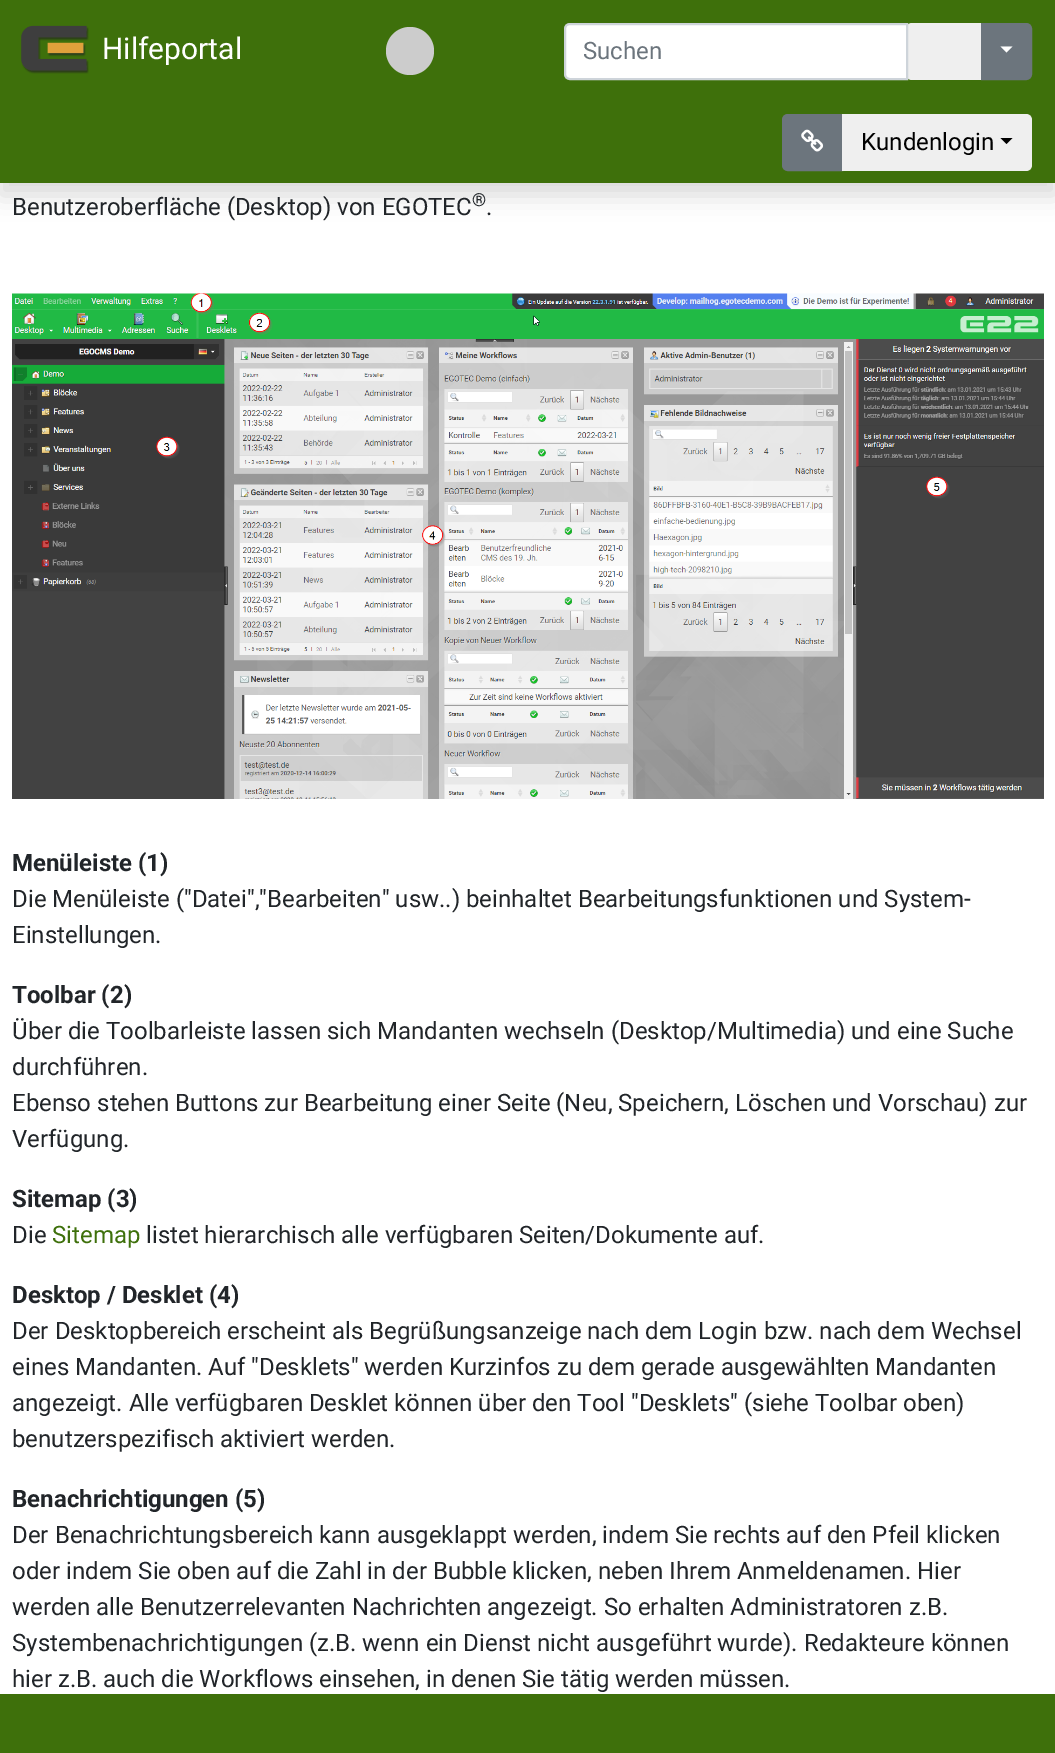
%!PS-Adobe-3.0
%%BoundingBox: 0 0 1055 1753
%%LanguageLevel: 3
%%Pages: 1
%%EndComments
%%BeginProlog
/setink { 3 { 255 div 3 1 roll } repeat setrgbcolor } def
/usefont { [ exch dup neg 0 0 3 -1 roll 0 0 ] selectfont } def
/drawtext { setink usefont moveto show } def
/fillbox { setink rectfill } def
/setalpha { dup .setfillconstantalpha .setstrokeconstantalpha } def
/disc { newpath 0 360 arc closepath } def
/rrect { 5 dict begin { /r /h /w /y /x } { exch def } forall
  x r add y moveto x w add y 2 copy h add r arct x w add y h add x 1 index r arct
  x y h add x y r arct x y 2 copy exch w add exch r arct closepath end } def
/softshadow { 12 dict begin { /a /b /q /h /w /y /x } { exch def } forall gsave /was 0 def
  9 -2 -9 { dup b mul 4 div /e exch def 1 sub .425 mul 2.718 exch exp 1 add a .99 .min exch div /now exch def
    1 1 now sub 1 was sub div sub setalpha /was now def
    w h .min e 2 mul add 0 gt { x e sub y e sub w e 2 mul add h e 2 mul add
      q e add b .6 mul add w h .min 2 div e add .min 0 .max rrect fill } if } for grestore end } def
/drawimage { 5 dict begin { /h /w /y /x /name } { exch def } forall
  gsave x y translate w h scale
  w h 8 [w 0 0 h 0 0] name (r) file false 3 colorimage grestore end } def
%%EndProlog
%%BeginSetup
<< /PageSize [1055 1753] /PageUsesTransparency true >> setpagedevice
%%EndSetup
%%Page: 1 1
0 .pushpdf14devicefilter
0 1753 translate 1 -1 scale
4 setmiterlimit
0 0 1055 1753 255 255 255 fillbox
0 0 0 setink
0 12 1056 183 0 12 0.15 softshadow
0 0 1055 183 62 112 11 fillbox
(assets/img1.rgb) 21 25 68 49 drawimage
(Hilfeportal) 102 59 /Roboto-Regular 30 255 255 255 drawtext
204 204 204 setink
410 51 24 disc fill
239 239 239 setink
912 23 moveto 981 23 lineto 981 80 lineto 912 80 lineto 908.5 80 906 77.5 906 74 curveto 906 29 lineto 906 25.5 908.5 23 912 23 curveto closepath fill
255 255 255 setink
570 24 moveto 907 24 lineto 907 79 lineto 570 79 lineto 567 79 565 77 565 74 curveto 565 29 lineto 565 26 567 24 570 24 curveto closepath gsave fill grestore
206 212 218 setink
2 setlinewidth
stroke
(Suchen) 583 59 /Roboto-Regular 24 108 117 125 drawtext
982 24 moveto 1026 24 lineto 1029 24 1031 26 1031 29 curveto 1031 74 lineto 1031 77 1029 79 1026 79 curveto 982 79 lineto closepath gsave fill grestore
stroke
255 255 255 setink
1000.5 46.5 moveto 1012.5 46.5 lineto 1006.5 52.5 lineto closepath fill
108 117 125 setink
788 115 moveto 842 115 lineto 842 170 lineto 788 170 lineto 785 170 783 168 783 165 curveto 783 120 lineto 783 117 785 115 788 115 curveto closepath gsave fill grestore
stroke
(assets/img2.rgb) 801 129 23 23 drawimage
239 239 239 setink
842 114 moveto 1026 114 lineto 1029.5 114 1032 116.5 1032 120 curveto 1032 165 lineto 1032 168.5 1029.5 171 1026 171 curveto 842 171 lineto closepath fill
(Kundenlogin) 861 150 /Roboto-Regular 24 0 0 0 drawtext
1000.5 138 moveto 1012.5 138 lineto 1006.5 144 lineto closepath fill
(Benutzeroberfläche \(Desktop\) von EGOTEC) 12 215 /Roboto-Regular 24 33 37 41 drawtext
(®) 472 206 /Roboto-Regular 18 33 37 41 drawtext
(.) 486 215 /Roboto-Regular 24 33 37 41 drawtext
(assets/img3.rgb) 12 293 1032 506 drawimage
(Menüleiste \(1\)) 12 871 /Roboto-Bold 24 33 37 41 drawtext
(Die Menüleiste \("Datei","Bearbeiten" usw..\) beinhaltet Bearbeitungsfunktionen und System-) 12 907 /Roboto-Regular 24 33 37 41 drawtext
(Einstellungen.) 12 943 /Roboto-Regular 24 33 37 41 drawtext
(Toolbar \(2\)) 12 1003 /Roboto-Bold 24 33 37 41 drawtext
(Über die Toolbarleiste lassen sich Mandanten wechseln \(Desktop/Multimedia\) und eine Suche) 12 1039 /Roboto-Regular 24 33 37 41 drawtext
(durchführen.) 12 1075 /Roboto-Regular 24 33 37 41 drawtext
(Ebenso stehen Buttons zur Bearbeitung einer Seite \(Neu, Speichern, Löschen und Vorschau\) zur) 12 1111 /Roboto-Regular 24 33 37 41 drawtext
(Verfügung.) 12 1147 /Roboto-Regular 24 33 37 41 drawtext
(Sitemap \(3\)) 12 1207 /Roboto-Bold 24 33 37 41 drawtext
(Die) 12 1243 /Roboto-Regular 24 33 37 41 drawtext
(Sitemap) 52 1243 /Roboto-Regular 24 62 112 11 drawtext
(listet hierarchisch alle verfügbaren Seiten/Dokumente auf.) 146 1243 /Roboto-Regular 24 33 37 41 drawtext
(Desktop / Desklet \(4\)) 12 1303 /Roboto-Bold 24 33 37 41 drawtext
(Der Desktopbereich erscheint als Begrüßungsanzeige nach dem Login bzw. nach dem Wechsel) 12 1339 /Roboto-Regular 24 33 37 41 drawtext
(eines Mandanten. Auf "Desklets" werden Kurzinfos zu dem gerade ausgewählten Mandanten) 12 1375 /Roboto-Regular 24 33 37 41 drawtext
(angezeigt. Alle verfügbaren Desklet können über den Tool "Desklets" \(siehe Toolbar oben\)) 12 1411 /Roboto-Regular 24 33 37 41 drawtext
(benutzerspezifisch aktiviert werden.) 12 1447 /Roboto-Regular 24 33 37 41 drawtext
(Benachrichtigungen \(5\)) 12 1507 /Roboto-Bold 24 33 37 41 drawtext
(Der Benachrichtungsbereich kann ausgeklappt werden, indem Sie rechts auf den Pfeil klicken) 12 1543 /Roboto-Regular 24 33 37 41 drawtext
(oder indem Sie oben auf die Zahl in der Bubble klicken, neben Ihrem Anmeldenamen. Hier) 12 1579 /Roboto-Regular 24 33 37 41 drawtext
(werden alle Benutzerrelevanten Nachrichten angezeigt. So erhalten Administratoren z.B.) 12 1615 /Roboto-Regular 24 33 37 41 drawtext
(Systembenachrichtigungen \(z.B. wenn ein Dienst nicht ausgeführt wurde\). Redakteure können) 12 1651 /Roboto-Regular 24 33 37 41 drawtext
(hier z.B. auch die Workflows einsehen, in denen Sie tätig werden müssen.) 12 1687 /Roboto-Regular 24 33 37 41 drawtext
0 1694 1055 59 62 112 11 fillbox
.poppdf14devicefilter showpage
%%EOF
